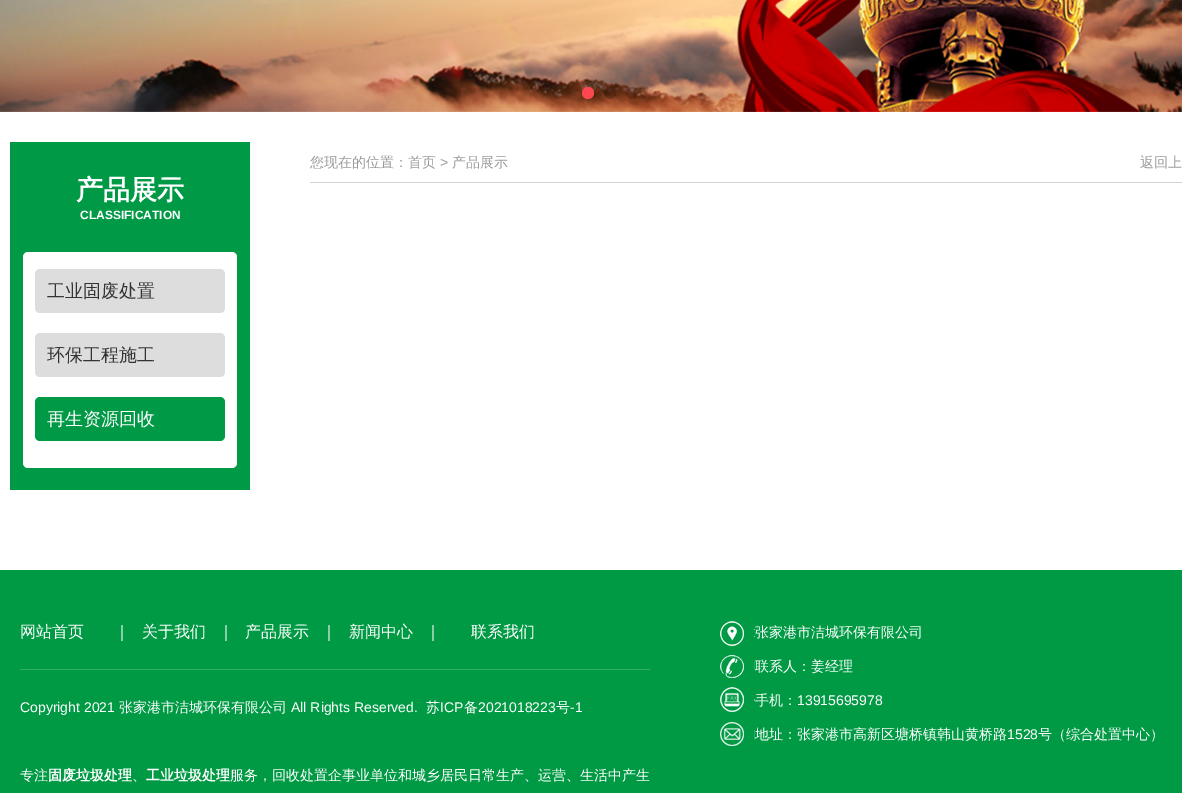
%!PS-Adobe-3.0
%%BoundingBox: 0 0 1182 793
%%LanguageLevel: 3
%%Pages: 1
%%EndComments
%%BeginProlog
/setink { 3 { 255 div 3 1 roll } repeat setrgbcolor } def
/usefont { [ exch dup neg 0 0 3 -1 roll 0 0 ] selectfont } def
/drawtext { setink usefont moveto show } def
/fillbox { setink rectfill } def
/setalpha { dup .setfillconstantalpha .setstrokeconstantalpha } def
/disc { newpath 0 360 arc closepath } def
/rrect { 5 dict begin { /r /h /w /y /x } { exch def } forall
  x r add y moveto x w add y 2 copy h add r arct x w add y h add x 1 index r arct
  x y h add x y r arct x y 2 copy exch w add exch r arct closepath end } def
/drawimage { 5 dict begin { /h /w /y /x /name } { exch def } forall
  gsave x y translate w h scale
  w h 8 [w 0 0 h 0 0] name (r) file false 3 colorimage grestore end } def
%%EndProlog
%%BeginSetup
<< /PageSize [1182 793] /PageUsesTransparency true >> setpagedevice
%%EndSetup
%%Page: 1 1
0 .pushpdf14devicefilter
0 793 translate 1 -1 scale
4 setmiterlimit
0 0 1182 793 255 255 255 fillbox
(assets/img1.rgb) 0 0 1182 112 drawimage
255 71 81 setink
588 93 6 disc fill
0.2 setalpha
0 0 0 setink
610 93 6 disc fill
632 93 6 disc fill
1 setalpha
310 182 872 1 211 211 211 fillbox
(您现在的位置：首页) 310 167 /WenQuanYiZenHei-Medium 14 153 153 153 drawtext
(>) 440 167 /LiberationSans-Regular 14 153 153 153 drawtext
(产品展示) 452 167 /WenQuanYiZenHei-Medium 14 153 153 153 drawtext
(返回上) 1140 167 /WenQuanYiZenHei-Medium 14 153 153 153 drawtext
10 142 240 348 0 153 70 fillbox
(产品展示) 76 199 /WenQuanYiZenHei-Bold 27 255 255 255 drawtext
(CLASSIFICATION) 80 219 /LiberationSans-Bold 12 255 255 255 drawtext
23 252 214 216 5 rrect fill
221 221 221 setink
35 269 190 44 5 rrect fill
(工业固废处置) 47 297 /WenQuanYiZenHei-Medium 18 51 51 51 drawtext
221 221 221 setink
35 333 190 44 5 rrect fill
(环保工程施工) 47 361 /WenQuanYiZenHei-Medium 18 51 51 51 drawtext
0 153 70 setink
35 397 190 44 5 rrect fill
(再生资源回收) 47 425 /WenQuanYiZenHei-Medium 18 255 255 255 drawtext
0 570 1182 223 0 154 68 fillbox
20 669 630 1 51 174 105 fillbox
(网站首页) 20 637 /WenQuanYiZenHei-Medium 16 255 255 255 drawtext
(｜) 114 637 /WenQuanYiZenHei-Medium 16 255 255 255 drawtext
(关于我们) 142 637 /WenQuanYiZenHei-Medium 16 255 255 255 drawtext
(｜) 218 637 /WenQuanYiZenHei-Medium 16 255 255 255 drawtext
(产品展示) 245 637 /WenQuanYiZenHei-Medium 16 255 255 255 drawtext
(｜) 321 637 /WenQuanYiZenHei-Medium 16 255 255 255 drawtext
(新闻中心) 349 637 /WenQuanYiZenHei-Medium 16 255 255 255 drawtext
(｜) 425 637 /WenQuanYiZenHei-Medium 16 255 255 255 drawtext
(联系我们) 471 637 /WenQuanYiZenHei-Medium 16 255 255 255 drawtext
(Copyright 2021) 20 712 /LiberationSans-Regular 14 255 255 255 drawtext
(张家港市洁城环保有限公司) 119 712 /WenQuanYiZenHei-Medium 14 255 255 255 drawtext
(All Rights Reserved.) 291 712 /LiberationSans-Regular 14 255 255 255 drawtext
(苏) 426 712 /WenQuanYiZenHei-Medium 14 255 255 255 drawtext
(ICP) 440 712 /LiberationSans-Regular 14 255 255 255 drawtext
(备) 464 712 /WenQuanYiZenHei-Medium 14 255 255 255 drawtext
(2021018223) 478 712 /LiberationSans-Regular 14 255 255 255 drawtext
(号) 556 712 /WenQuanYiZenHei-Medium 14 255 255 255 drawtext
(-1) 570 712 /LiberationSans-Regular 14 255 255 255 drawtext
(专注) 20 780 /WenQuanYiZenHei-Medium 14 255 255 255 drawtext
(固废垃圾处理) 48 780 /WenQuanYiZenHei-Bold 14 255 255 255 drawtext
(、) 132 780 /WenQuanYiZenHei-Medium 14 255 255 255 drawtext
(工业垃圾处理) 146 780 /WenQuanYiZenHei-Bold 14 255 255 255 drawtext
(服务，回收处置企事业单位和城乡居民日常生产、运营、生活中产生) 230 780 /WenQuanYiZenHei-Medium 14 255 255 255 drawtext
(assets/img2.rgb) 720 621 35 125 drawimage
(张家港市洁城环保有限公司) 755 637 /WenQuanYiZenHei-Medium 14 255 255 255 drawtext
(联系人：姜经理) 755 671 /WenQuanYiZenHei-Medium 14 255 255 255 drawtext
(手机：) 755 705 /WenQuanYiZenHei-Medium 14 255 255 255 drawtext
(13915695978) 797 705 /LiberationSans-Regular 14 255 255 255 drawtext
(地址：张家港市高新区塘桥镇韩山黄桥路) 755 739 /WenQuanYiZenHei-Medium 14 255 255 255 drawtext
(1528) 1007 739 /LiberationSans-Regular 14 255 255 255 drawtext
(号（综合处置中心）) 1038 739 /WenQuanYiZenHei-Medium 14 255 255 255 drawtext
.poppdf14devicefilter showpage
%%EOF
